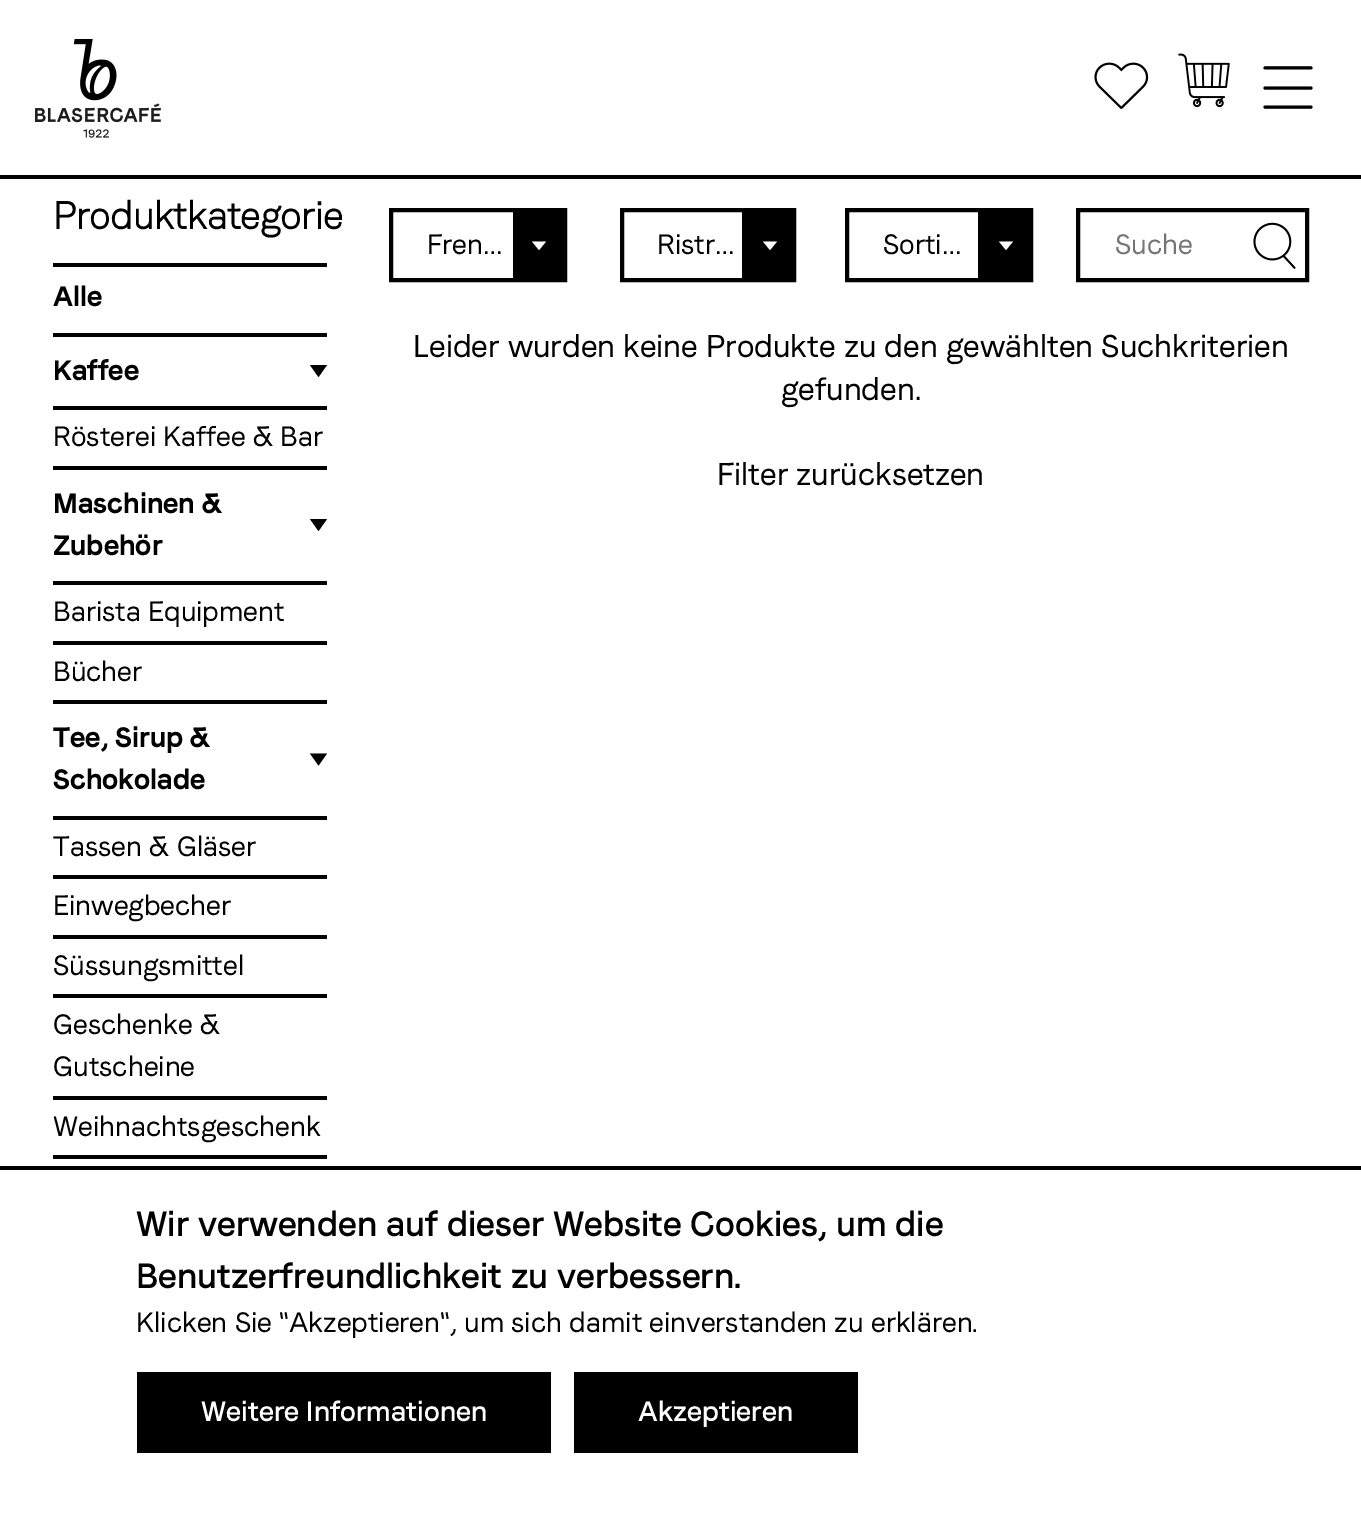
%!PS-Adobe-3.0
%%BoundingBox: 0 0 1361 1533
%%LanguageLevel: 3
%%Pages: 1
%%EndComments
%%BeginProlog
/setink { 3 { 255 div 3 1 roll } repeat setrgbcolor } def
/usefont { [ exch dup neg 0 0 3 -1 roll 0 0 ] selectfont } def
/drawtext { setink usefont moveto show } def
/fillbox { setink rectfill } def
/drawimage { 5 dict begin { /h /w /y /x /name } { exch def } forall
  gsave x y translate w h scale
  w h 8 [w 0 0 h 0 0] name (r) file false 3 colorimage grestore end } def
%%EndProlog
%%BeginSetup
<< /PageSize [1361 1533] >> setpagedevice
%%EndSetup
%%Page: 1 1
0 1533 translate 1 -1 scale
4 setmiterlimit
0 0 1361 1533 255 255 255 fillbox
(assets/img1.rgb) 35 39 126 99 drawimage
(assets/img2.rgb) 1094 62 55 47 drawimage
(assets/img3.rgb) 1178 53 52 55 drawimage
(assets/img4.rgb) 1263 66 50 43 drawimage
0 175 1361 4 0 0 0 fillbox
53 263 274 4 0 0 0 fillbox
(Produktkategorie) 53 229 /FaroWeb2-Bold 38.5 0 0 0 drawtext
(Alle) 53 306 /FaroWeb-Bold 28 0 0 0 drawtext
53 333 274 4 0 0 0 fillbox
(Kaffee) 53 380 /FaroWeb-Bold 28 0 0 0 drawtext
310 365 moveto 327 365 lineto 318.5 377 lineto closepath fill
53 406 274 4 0 0 0 fillbox
(Rösterei Kaffee & Bar) 53 446 /FaroWeb-Regular 28 0 0 0 drawtext
53 466 274 4 0 0 0 fillbox
(Maschinen &) 53 513 /FaroWeb-Bold 28 0 0 0 drawtext
310 519 moveto 327 519 lineto 318.5 531 lineto closepath fill
(Zubehör) 53 555 /FaroWeb-Bold 28 0 0 0 drawtext
53 581 274 4 0 0 0 fillbox
(Barista Equipment) 53 621 /FaroWeb-Regular 28 0 0 0 drawtext
53 641 274 4 0 0 0 fillbox
(Bücher) 53 681 /FaroWeb-Regular 28 0 0 0 drawtext
53 700 274 4 0 0 0 fillbox
gsave
53 263 274 896 rectclip
(Tee, Sirup &) 53 747 /FaroWeb-Bold 28 0 0 0 drawtext
grestore
310 753.5 moveto 327 753.5 lineto 318.5 765.5 lineto closepath fill
(Schokolade) 53 789 /FaroWeb-Bold 28 0 0 0 drawtext
53 816 274 4 0 0 0 fillbox
gsave
53 263 274 896 rectclip
(Tassen & Gläser) 53 856 /FaroWeb-Regular 28 0 0 0 drawtext
grestore
53 875 274 4 0 0 0 fillbox
(Einwegbecher) 53 915 /FaroWeb-Regular 28 0 0 0 drawtext
53 935 274 4 0 0 0 fillbox
(Süssungsmittel) 53 975 /FaroWeb-Regular 28 0 0 0 drawtext
53 994 274 4 0 0 0 fillbox
(Geschenke &) 53 1034 /FaroWeb-Regular 28 0 0 0 drawtext
(Gutscheine) 53 1076 /FaroWeb-Regular 28 0 0 0 drawtext
53 1096 274 4 0 0 0 fillbox
53 1155 274 4 0 0 0 fillbox
(Weihnachtsgeschenk) 53 1136 /FaroWeb-Regular 28 0 0 0 drawtext
4 setlinewidth
391 210 174 70 rectstroke
(Fren…) 427 254 /FaroWeb-Regular 28 0 0 0 drawtext
513 212 50 66 0 0 0 fillbox
255 255 255 setink
532 241.5 moveto 546 241.5 lineto 539 250 lineto closepath fill
0 0 0 setink
622 210 172 70 rectstroke
(Ristr…) 657 254 /FaroWeb-Regular 28 0 0 0 drawtext
742 212 50 66 0 0 0 fillbox
255 255 255 setink
763 241.5 moveto 777 241.5 lineto 770 250 lineto closepath fill
0 0 0 setink
847 210 184 70 rectstroke
(Sorti…) 883 254 /FaroWeb-Regular 28 0 0 0 drawtext
978 212 51 66 0 0 0 fillbox
255 255 255 setink
999 241.5 moveto 1013 241.5 lineto 1006 250 lineto closepath fill
0 0 0 setink
1078 210 229 70 rectstroke
(Suche) 1115 254 /FaroWeb-Regular 28 117 117 117 drawtext
(assets/img5.rgb) 1253 222 43 47 drawimage
(Leider wurden keine Produkte zu den gewählten Suchkriterien) 413 357 /FaroWeb-Regular 31.5 0 0 0 drawtext
(gefunden.) 781 400 /FaroWeb-Regular 31.5 0 0 0 drawtext
(Filter zurücksetzen) 717 485 /FaroWeb-Regular 31.5 0 0 0 drawtext
0 1166 1361 4 0 0 0 fillbox
(Wir verwenden auf dieser Website Cookies, um die) 136 1236 /FaroWeb-SemiBold 35 0 0 0 drawtext
(Benutzerfreundlichkeit zu verbessern.) 136 1288 /FaroWeb-SemiBold 35 0 0 0 drawtext
(Klicken Sie "Akzeptieren", um sich damit einverstanden zu erklären.) 136 1332 /FaroWeb-Regular 28 0 0 0 drawtext
137 1372 414 81 0 0 0 fillbox
(Weitere Informationen) 201 1421 /FaroWeb-SemiBold 28 255 255 255 drawtext
574 1372 284 81 0 0 0 fillbox
(Akzeptieren) 638 1421 /FaroWeb-SemiBold 28 255 255 255 drawtext
showpage
%%EOF
